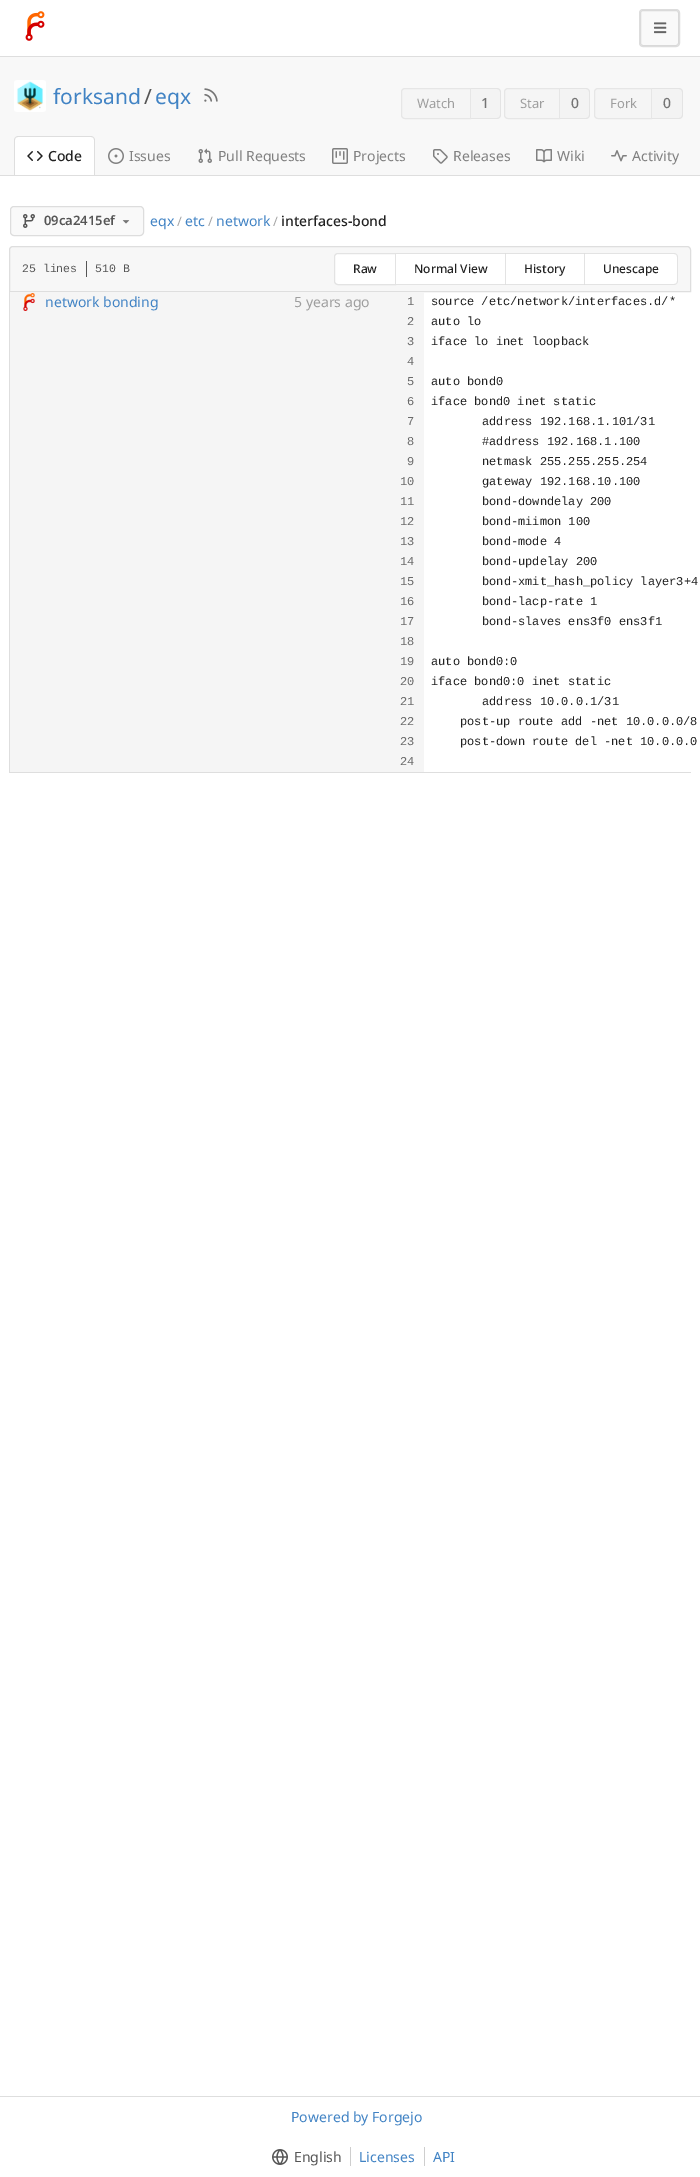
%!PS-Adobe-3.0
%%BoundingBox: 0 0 700 2177
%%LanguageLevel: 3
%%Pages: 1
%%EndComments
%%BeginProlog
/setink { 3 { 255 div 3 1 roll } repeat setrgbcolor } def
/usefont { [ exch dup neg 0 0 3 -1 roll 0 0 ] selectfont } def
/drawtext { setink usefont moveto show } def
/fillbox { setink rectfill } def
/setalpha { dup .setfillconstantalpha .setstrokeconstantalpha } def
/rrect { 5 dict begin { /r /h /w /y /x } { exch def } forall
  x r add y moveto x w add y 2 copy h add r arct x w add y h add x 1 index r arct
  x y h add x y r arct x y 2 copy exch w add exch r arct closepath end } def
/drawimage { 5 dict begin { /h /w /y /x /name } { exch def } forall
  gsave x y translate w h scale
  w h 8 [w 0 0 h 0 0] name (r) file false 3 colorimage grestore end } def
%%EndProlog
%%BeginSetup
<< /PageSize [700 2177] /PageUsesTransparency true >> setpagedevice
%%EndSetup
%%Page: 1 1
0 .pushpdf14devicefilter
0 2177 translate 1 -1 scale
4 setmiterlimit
0 0 700 2177 255 255 255 fillbox
0 56 700 1 222 222 222 fillbox
(assets/img1.rgb) 25 11 20 30 drawimage
249 249 249 setink
639 9 41 38 4 rrect fill
217 217 217 setink
640.5 10.5 38 35 2.5 rrect stroke
221 221 221 setink
639.5 9.5 40 37 3.5 rrect stroke
(assets/img2.rgb) 654 22 13 12 drawimage
0 57 700 118 248 248 248 fillbox
(assets/img3.rgb) 14 80 32 32 drawimage
(forksand) 53 104 /NotoSans-Regular 21 65 131 196 drawtext
(/) 144 104 /NotoSans-Regular 21 85 85 85 drawtext
(eqx) 155 104 /NotoSans-Regular 21 65 131 196 drawtext
(assets/img4.rgb) 204 88 14 14 drawimage
245 245 245 setink
405 88.5 moveto 470.5 88.5 lineto 470.5 118.5 lineto 405 118.5 lineto 403 118.5 401.5 117 401.5 115 curveto 401.5 92 lineto 401.5 90 403 88.5 405 88.5 curveto closepath gsave fill grestore
230 230 230 setink
stroke
(Watch) 417 108 /NotoSans-Regular 13 158 158 158 drawtext
243 243 243 setink
471 88 moveto 497 88 lineto 499 88 501 90 501 92 curveto 501 115 lineto 501 117 499 119 497 119 curveto 471 119 lineto closepath fill
228 228 228 setink
471 88 moveto 497 88 lineto 499 88 501 90 501 92 curveto 501 115 lineto 501 117 499 119 497 119 curveto 471 119 lineto closepath 471 89 moveto 497 89 lineto 498.5 89 500 90.5 500 92 curveto 500 115 lineto 500 116.5 498.5 118 497 118 curveto 471 118 lineto closepath eofill
(1) 481 108 /NotoSans-Medium 14 116 116 116 drawtext
245 245 245 setink
508 88.5 moveto 559.5 88.5 lineto 559.5 118.5 lineto 508 118.5 lineto 506 118.5 504.5 117 504.5 115 curveto 504.5 92 lineto 504.5 90 506 88.5 508 88.5 curveto closepath gsave fill grestore
230 230 230 setink
stroke
(Star) 520 108 /NotoSans-Regular 13 158 158 158 drawtext
243 243 243 setink
560 88 moveto 586 88 lineto 588 88 590 90 590 92 curveto 590 115 lineto 590 117 588 119 586 119 curveto 560 119 lineto closepath fill
228 228 228 setink
560 88 moveto 586 88 lineto 588 88 590 90 590 92 curveto 590 115 lineto 590 117 588 119 586 119 curveto 560 119 lineto closepath 560 89 moveto 586 89 lineto 587.5 89 589 90.5 589 92 curveto 589 115 lineto 589 116.5 587.5 118 586 118 curveto 560 118 lineto closepath eofill
(0) 571 108 /NotoSans-Medium 14 116 116 116 drawtext
245 245 245 setink
598 88.5 moveto 651.5 88.5 lineto 651.5 118.5 lineto 598 118.5 lineto 596 118.5 594.5 117 594.5 115 curveto 594.5 92 lineto 594.5 90 596 88.5 598 88.5 curveto closepath gsave fill grestore
230 230 230 setink
stroke
(Fork) 610 108 /NotoSans-Regular 13 158 158 158 drawtext
243 243 243 setink
652 88 moveto 679 88 lineto 681 88 683 90 683 92 curveto 683 115 lineto 683 117 681 119 679 119 curveto 652 119 lineto closepath fill
228 228 228 setink
652 88 moveto 679 88 lineto 681 88 683 90 683 92 curveto 683 115 lineto 683 117 681 119 679 119 curveto 652 119 lineto closepath 652 89 moveto 679 89 lineto 680.5 89 682 90.5 682 92 curveto 682 115 lineto 682 116.5 680.5 118 679 118 curveto 652 118 lineto closepath eofill
(0) 663 108 /NotoSans-Medium 14 116 116 116 drawtext
255 255 255 setink
18 136 moveto 91 136 lineto 93 136 95 138 95 140 curveto 95 175 lineto 14 175 lineto 14 140 lineto 14 138 16 136 18 136 curveto closepath fill
222 222 222 setink
18 136 moveto 91 136 lineto 93 136 95 138 95 140 curveto 95 176 lineto 14 176 lineto 14 140 lineto 14 138 16 136 18 136 curveto closepath 18 137 moveto 91 137 lineto 93 137 94 138 94 140 curveto 94 176 lineto 15 176 lineto 15 140 lineto 15 138 16 137 18 137 curveto closepath eofill
(assets/img5.rgb) 27 151 16 10 drawimage
(Code) 48 161 /NotoSans-Medium 14 33 33 33 drawtext
(assets/img6.rgb) 108 148 16 16 drawimage
(Issues) 129 161 /NotoSans-Regular 14 128 128 128 drawtext
(assets/img7.rgb) 198 148 14 15 drawimage
(Pull Requests) 218 161 /NotoSans-Regular 14 128 128 128 drawtext
(assets/img8.rgb) 332 148 16 16 drawimage
(Projects) 353 161 /NotoSans-Regular 14 128 128 128 drawtext
(assets/img9.rgb) 433 149 15 15 drawimage
(Releases) 453 161 /NotoSans-Regular 14 128 128 128 drawtext
(assets/img10.rgb) 536 149 16 14 drawimage
(Wiki) 557 161 /NotoSans-Regular 14 128 128 128 drawtext
(assets/img11.rgb) 611 150 16 12 drawimage
(Activity) 632 161 /NotoSans-Regular 14 128 128 128 drawtext
0 175 700 1 222 222 222 fillbox
249 249 249 setink
10.5 206.5 133 29 3.5 rrect gsave fill grestore
221 221 221 setink
stroke
(assets/img12.rgb) 23 214 12 14 drawimage
(09ca2415ef) 44 225 /NotoSans-SemiBold 13 85 85 85 drawtext
(assets/img13.rgb) 122 220 8 4 drawimage
(eqx) 150 226 /NotoSans-Regular 14 65 131 196 drawtext
(/) 177 226 /NotoSans-Regular 13 166 166 166 drawtext
(etc) 185 226 /NotoSans-Regular 14 65 131 196 drawtext
(/) 208 226 /NotoSans-Regular 13 166 166 166 drawtext
(network) 216 226 /NotoSans-Regular 14 65 131 196 drawtext
(/) 273 226 /NotoSans-Regular 13 166 166 166 drawtext
(interfaces-bond) 281 226 /NotoSans-Medium 14 33 33 33 drawtext
247 247 247 setink
13 246.5 moveto 687 246.5 lineto 689 246.5 690.5 248 690.5 250 curveto 690.5 291.5 lineto 9.5 291.5 lineto 9.5 250 lineto 9.5 248 11 246.5 13 246.5 curveto closepath gsave fill grestore
222 222 222 setink
stroke
(25 lines) 22 272 /LiberationMono-Regular 11.5 85 85 85 drawtext
86 261 1 16 85 85 85 fillbox
(510 B) 95 272 /LiberationMono-Regular 11.5 85 85 85 drawtext
255 255 255 setink
338 253 moveto 396 253 lineto 396 285 lineto 338 285 lineto 336 285 334 283 334 281 curveto 334 257 lineto 334 255 336 253 338 253 curveto closepath fill
0.11 setalpha
0 0 0 setink
338 253.5 moveto 395.5 253.5 lineto 395.5 284.5 lineto 338 284.5 lineto 336 284.5 334.5 283 334.5 281 curveto 334.5 257 lineto 334.5 255 336 253.5 338 253.5 curveto closepath stroke
1 setalpha
(Raw) 353 273 /NotoSans-Medium 12 33 33 33 drawtext
396 253 189 32 255 255 255 fillbox
226 226 226 setink
396 253 moveto 506 253 lineto 505 254 lineto 396 254 lineto closepath fill
0.11 setalpha
0 0 0 setink
506 253 moveto 506 285 lineto 505 284 lineto 505 254 lineto closepath fill
506 285 moveto 396 285 lineto 396 284 lineto 505 284 lineto closepath fill
1 setalpha
(Normal View) 414 273 /NotoSans-Medium 12 33 33 33 drawtext
226 226 226 setink
506 253 moveto 585 253 lineto 584 254 lineto 506 254 lineto closepath fill
0.11 setalpha
0 0 0 setink
585 253 moveto 585 285 lineto 584 284 lineto 584 254 lineto closepath fill
585 285 moveto 506 285 lineto 506 284 lineto 584 284 lineto closepath fill
1 setalpha
(History) 524 273 /NotoSans-Medium 12 33 33 33 drawtext
255 255 255 setink
585 253 moveto 674 253 lineto 676 253 678 255 678 257 curveto 678 281 lineto 678 283 676 285 674 285 curveto 585 285 lineto closepath fill
0.11 setalpha
0 0 0 setink
585 253 moveto 674 253 lineto 676 253 678 255 678 257 curveto 678 281 lineto 678 283 676 285 674 285 curveto 585 285 lineto closepath 585 254 moveto 674 254 lineto 676 254 677 255 677 257 curveto 677 281 lineto 677 283 676 284 674 284 curveto 585 284 lineto closepath eofill
1 setalpha
(Unescape) 603 273 /NotoSans-Medium 12 33 33 33 drawtext
9 772 682 1 222 222 222 fillbox
9 292 1 481 222 222 222 fillbox
10 292 414 20 245 245 245 fillbox
(assets/img14.rgb) 23 293 12 18 drawimage
(network bonding) 45 307 /NotoSans-Regular 14 65 131 196 drawtext
(5 years ago) 294 307 /NotoSans-Regular 14 158 158 158 drawtext
(1) 407 305 /LiberationMono-Regular 12 106 106 106 drawtext
(source /etc/network/interfaces.d/*) 431 305 /LiberationMono-Regular 12 33 33 33 drawtext
10 312 414 20 245 245 245 fillbox
(auto lo) 431 325 /LiberationMono-Regular 12 33 33 33 drawtext
(2) 407 325 /LiberationMono-Regular 12 106 106 106 drawtext
10 332 414 20 245 245 245 fillbox
(iface lo inet loopback) 431 345 /LiberationMono-Regular 12 33 33 33 drawtext
(3) 407 345 /LiberationMono-Regular 12 106 106 106 drawtext
10 352 414 20 245 245 245 fillbox
(4) 407 365 /LiberationMono-Regular 12 106 106 106 drawtext
10 372 414 20 245 245 245 fillbox
(auto bond0) 431 385 /LiberationMono-Regular 12 33 33 33 drawtext
(5) 407 385 /LiberationMono-Regular 12 106 106 106 drawtext
10 392 414 20 245 245 245 fillbox
(iface bond0 inet static) 431 405 /LiberationMono-Regular 12 33 33 33 drawtext
(6) 407 405 /LiberationMono-Regular 12 106 106 106 drawtext
10 412 414 20 245 245 245 fillbox
(address 192.168.1.101/31) 482 425 /LiberationMono-Regular 12 33 33 33 drawtext
(7) 407 425 /LiberationMono-Regular 12 106 106 106 drawtext
10 432 414 20 245 245 245 fillbox
(#address 192.168.1.100) 482 445 /LiberationMono-Regular 12 33 33 33 drawtext
(8) 407 445 /LiberationMono-Regular 12 106 106 106 drawtext
10 452 414 20 245 245 245 fillbox
(netmask 255.255.255.254) 482 465 /LiberationMono-Regular 12 33 33 33 drawtext
(9) 407 465 /LiberationMono-Regular 12 106 106 106 drawtext
10 472 414 20 245 245 245 fillbox
(10) 400 485 /LiberationMono-Regular 12 106 106 106 drawtext
(gateway 192.168.10.100) 482 485 /LiberationMono-Regular 12 33 33 33 drawtext
10 492 414 20 245 245 245 fillbox
(bond-downdelay 200) 482 505 /LiberationMono-Regular 12 33 33 33 drawtext
(11) 400 505 /LiberationMono-Regular 12 106 106 106 drawtext
10 512 414 20 245 245 245 fillbox
(bond-miimon 100) 482 525 /LiberationMono-Regular 12 33 33 33 drawtext
(12) 400 525 /LiberationMono-Regular 12 106 106 106 drawtext
10 532 414 20 245 245 245 fillbox
(bond-mode 4) 482 545 /LiberationMono-Regular 12 33 33 33 drawtext
(13) 400 545 /LiberationMono-Regular 12 106 106 106 drawtext
10 552 414 20 245 245 245 fillbox
(bond-updelay 200) 482 565 /LiberationMono-Regular 12 33 33 33 drawtext
(14) 400 565 /LiberationMono-Regular 12 106 106 106 drawtext
10 572 414 20 245 245 245 fillbox
(bond-xmit_hash_policy layer3+4) 482 585 /LiberationMono-Regular 12 33 33 33 drawtext
(15) 400 585 /LiberationMono-Regular 12 106 106 106 drawtext
10 592 414 20 245 245 245 fillbox
(bond-lacp-rate 1) 482 605 /LiberationMono-Regular 12 33 33 33 drawtext
(16) 400 605 /LiberationMono-Regular 12 106 106 106 drawtext
10 612 414 20 245 245 245 fillbox
(bond-slaves ens3f0 ens3f1) 482 625 /LiberationMono-Regular 12 33 33 33 drawtext
(17) 400 625 /LiberationMono-Regular 12 106 106 106 drawtext
10 632 414 20 245 245 245 fillbox
(18) 400 645 /LiberationMono-Regular 12 106 106 106 drawtext
10 652 414 20 245 245 245 fillbox
(auto bond0:0) 431 665 /LiberationMono-Regular 12 33 33 33 drawtext
(19) 400 665 /LiberationMono-Regular 12 106 106 106 drawtext
10 672 414 20 245 245 245 fillbox
(iface bond0:0 inet static) 431 685 /LiberationMono-Regular 12 33 33 33 drawtext
(20) 400 685 /LiberationMono-Regular 12 106 106 106 drawtext
10 692 414 20 245 245 245 fillbox
(address 10.0.0.1/31) 482 705 /LiberationMono-Regular 12 33 33 33 drawtext
(21) 400 705 /LiberationMono-Regular 12 106 106 106 drawtext
10 712 414 20 245 245 245 fillbox
(post-up route add -net 10.0.0.0/8) 460 725 /LiberationMono-Regular 12 33 33 33 drawtext
(22) 400 725 /LiberationMono-Regular 12 106 106 106 drawtext
10 732 414 20 245 245 245 fillbox
(post-down route del -net 10.0.0.0) 460 745 /LiberationMono-Regular 12 33 33 33 drawtext
(23) 400 745 /LiberationMono-Regular 12 106 106 106 drawtext
10 752 414 20 245 245 245 fillbox
(24) 400 765 /LiberationMono-Regular 12 106 106 106 drawtext
0 2096 700 1 222 222 222 fillbox
(Powered by Forgejo) 291 2122 /NotoSans-Regular 14 65 131 196 drawtext
(assets/img15.rgb) 272 2149 16 16 drawimage
(English) 294 2162 /NotoSans-Regular 14 85 85 85 drawtext
(Licenses) 359 2162 /NotoSans-Regular 14 65 131 196 drawtext
350 2147 1 19 206 206 206 fillbox
(API) 433 2162 /NotoSans-Regular 14 65 131 196 drawtext
424 2147 1 19 206 206 206 fillbox
.poppdf14devicefilter showpage
%%EOF
